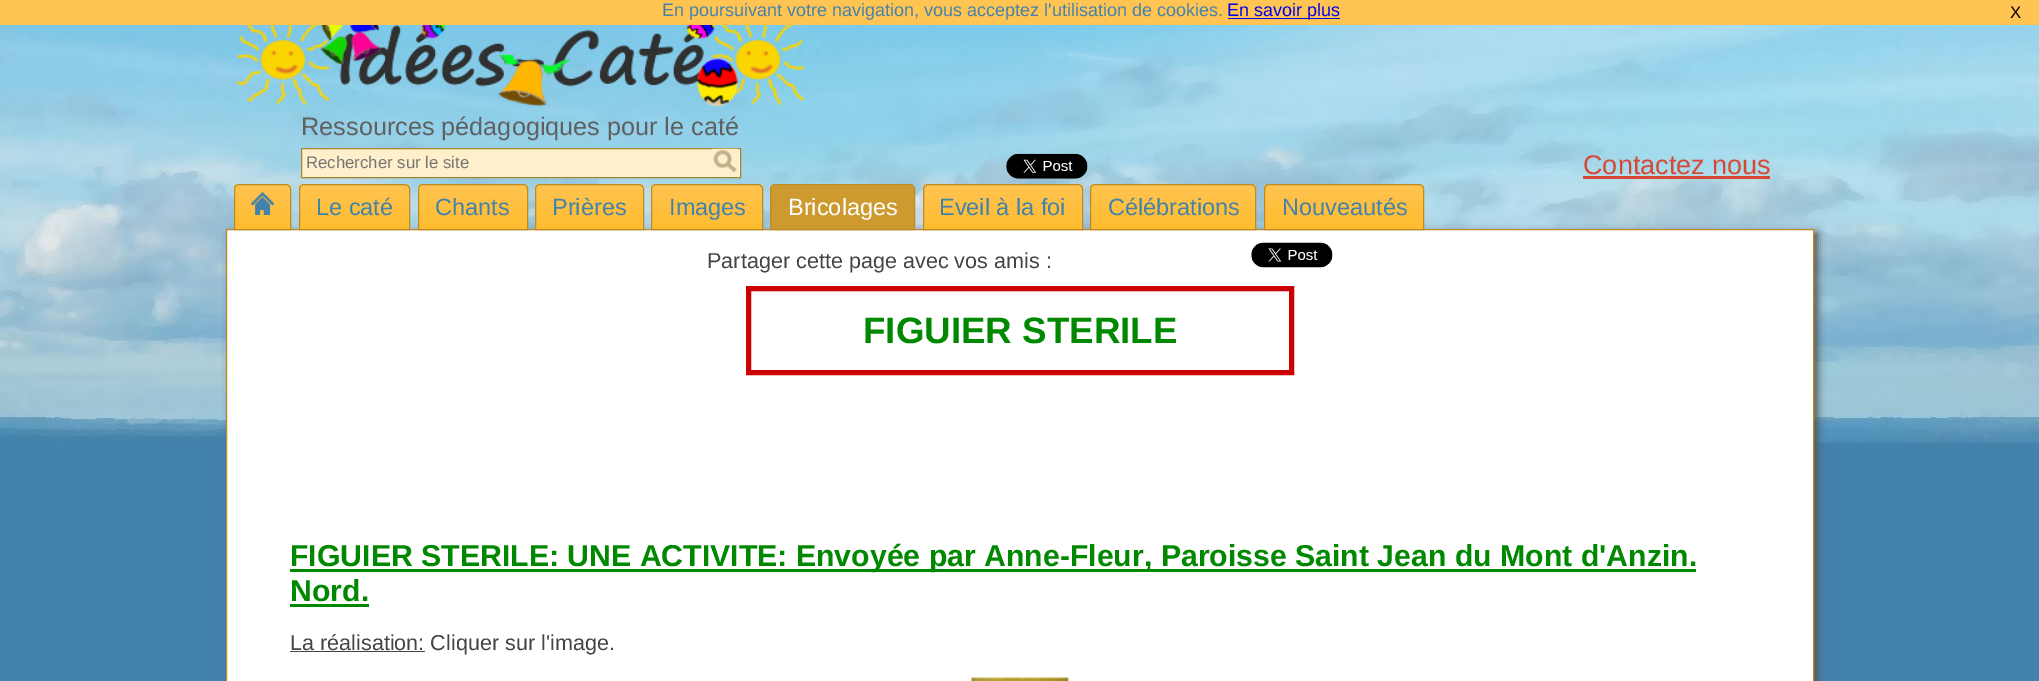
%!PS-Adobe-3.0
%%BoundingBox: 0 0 2039 681
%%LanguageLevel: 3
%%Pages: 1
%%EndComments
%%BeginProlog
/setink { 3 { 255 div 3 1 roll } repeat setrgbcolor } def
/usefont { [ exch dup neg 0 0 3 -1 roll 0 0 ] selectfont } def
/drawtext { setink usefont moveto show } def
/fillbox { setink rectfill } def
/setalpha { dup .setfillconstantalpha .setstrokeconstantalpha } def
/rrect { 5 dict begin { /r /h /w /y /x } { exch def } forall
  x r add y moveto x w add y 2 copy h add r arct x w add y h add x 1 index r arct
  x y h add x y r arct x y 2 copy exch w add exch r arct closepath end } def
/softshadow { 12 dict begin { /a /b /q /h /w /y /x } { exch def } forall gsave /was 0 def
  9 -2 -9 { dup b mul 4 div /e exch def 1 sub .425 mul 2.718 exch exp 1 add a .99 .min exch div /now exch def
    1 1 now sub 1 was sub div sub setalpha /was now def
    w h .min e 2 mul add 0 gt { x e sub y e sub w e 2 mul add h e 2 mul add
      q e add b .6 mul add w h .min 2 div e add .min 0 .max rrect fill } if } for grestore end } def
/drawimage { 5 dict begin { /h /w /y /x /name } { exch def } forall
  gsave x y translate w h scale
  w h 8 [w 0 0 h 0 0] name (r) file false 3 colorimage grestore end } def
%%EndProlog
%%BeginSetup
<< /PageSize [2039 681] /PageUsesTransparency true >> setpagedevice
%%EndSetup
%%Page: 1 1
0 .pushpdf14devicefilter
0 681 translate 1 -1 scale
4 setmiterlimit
0 0 2039 681 67 130 171 fillbox
(assets/img1.rgb) 0 25 2039 418 drawimage
0 0 2039 25 255 196 81 fillbox
(En poursuivant votre navigation, vous acceptez l'utilisation de cookies.) 662 16 /LiberationSans-Regular 18 67 130 171 drawtext
1228 18 112 1 0 0 238 fillbox
(En savoir plus) 1227 16 /LiberationSans-Regular 18 0 0 238 drawtext
(X) 2010 18 /LiberationSans-Regular 16.75 0 0 0 drawtext
(assets/img2.rgb) 236 25 569 82 drawimage
(Ressources pédagogiques pour le caté) 301 135 /LiberationSans-Regular 25.25 96 96 96 drawtext
255 240 203 setink
301.5 148.5 moveto 740.5 148.5 lineto 740.5 177.5 lineto 301.5 177.5 lineto closepath gsave fill grestore
166 133 52 setink
stroke
(Rechercher sur le site) 306 168 /LiberationSans-Regular 16.75 117 117 117 drawtext
(assets/img3.rgb) 712 148 26 25 drawimage
(assets/img4.rgb) 1006 153 82 26 drawimage
(Contactez nous) 1583 174 /LiberationSans-Regular 27 214 72 52 drawtext
1583 176 187 3 214 72 52 fillbox
227 230 1586 451 255 255 255 fillbox
gsave
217 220 moveto 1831 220 lineto 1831 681 lineto 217 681 lineto closepath 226 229 moveto 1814 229 lineto 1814 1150 lineto 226 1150 lineto closepath eoclip newpath
85 85 85 setink
230 233 1588 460 0 4 1 softshadow
grestore
gsave
239 184 moveto 286 184 lineto 289 184 291 186 291 189 curveto 291 230 lineto 234 230 lineto 234 189 lineto 234 186 236 184 239 184 curveto closepath clip newpath
gsave 234 185 moveto 291 185 lineto 291 229 lineto 234 229 lineto closepath clip newpath
<< /ShadingType 2 /ColorSpace /DeviceRGB /Coords [263 185 263 229] /Extend [true true] /Function << /FunctionType 2 /Domain [0 1] /C0 [1 0.769 0.318] /C1 [1 0.737 0.18] /N 1 >> >> shfill grestore
grestore
188 139 34 setink
226.5 229.5 1587 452 rectstroke
239 184.5 moveto 286 184.5 lineto 288.5 184.5 290.5 186.5 290.5 189 curveto 290.5 229.5 lineto 234.5 229.5 lineto 234.5 189 lineto 234.5 186.5 236.5 184.5 239 184.5 curveto closepath stroke
(assets/img5.rgb) 251 192 23 23 drawimage
gsave
304 184 moveto 405 184 lineto 408 184 410 186 410 189 curveto 410 230 lineto 299 230 lineto 299 189 lineto 299 186 301 184 304 184 curveto closepath clip newpath
gsave 299 185 moveto 410 185 lineto 410 229 lineto 299 229 lineto closepath clip newpath
<< /ShadingType 2 /ColorSpace /DeviceRGB /Coords [354 185 354 229] /Extend [true true] /Function << /FunctionType 2 /Domain [0 1] /C0 [1 0.769 0.318] /C1 [1 0.737 0.18] /N 1 >> >> shfill grestore
grestore
304 184.5 moveto 405 184.5 lineto 407.5 184.5 409.5 186.5 409.5 189 curveto 409.5 229.5 lineto 299.5 229.5 lineto 299.5 189 lineto 299.5 186.5 301.5 184.5 304 184.5 curveto closepath stroke
(Le caté) 316 215 /LiberationSans-Regular 23.5 67 130 171 drawtext
gsave
423 184 moveto 523 184 lineto 526 184 528 186 528 189 curveto 528 230 lineto 418 230 lineto 418 189 lineto 418 186 420 184 423 184 curveto closepath clip newpath
gsave 418 185 moveto 528 185 lineto 528 229 lineto 418 229 lineto closepath clip newpath
<< /ShadingType 2 /ColorSpace /DeviceRGB /Coords [473 185 473 229] /Extend [true true] /Function << /FunctionType 2 /Domain [0 1] /C0 [1 0.769 0.318] /C1 [1 0.737 0.18] /N 1 >> >> shfill grestore
grestore
188 139 34 setink
423 184.5 moveto 523 184.5 lineto 525.5 184.5 527.5 186.5 527.5 189 curveto 527.5 229.5 lineto 418.5 229.5 lineto 418.5 189 lineto 418.5 186.5 420.5 184.5 423 184.5 curveto closepath stroke
(Chants) 435 215 /LiberationSans-Regular 23.5 67 130 171 drawtext
gsave
540 184 moveto 639 184 lineto 642 184 644 186 644 189 curveto 644 230 lineto 535 230 lineto 535 189 lineto 535 186 537 184 540 184 curveto closepath clip newpath
gsave 535 185 moveto 644 185 lineto 644 229 lineto 535 229 lineto closepath clip newpath
<< /ShadingType 2 /ColorSpace /DeviceRGB /Coords [589 185 589 229] /Extend [true true] /Function << /FunctionType 2 /Domain [0 1] /C0 [1 0.769 0.318] /C1 [1 0.737 0.18] /N 1 >> >> shfill grestore
grestore
188 139 34 setink
540 184.5 moveto 639 184.5 lineto 641.5 184.5 643.5 186.5 643.5 189 curveto 643.5 229.5 lineto 535.5 229.5 lineto 535.5 189 lineto 535.5 186.5 537.5 184.5 540 184.5 curveto closepath stroke
(Prières) 552 215 /LiberationSans-Regular 23.5 67 130 171 drawtext
gsave
656 184 moveto 758 184 lineto 761 184 763 186 763 189 curveto 763 230 lineto 651 230 lineto 651 189 lineto 651 186 653 184 656 184 curveto closepath clip newpath
gsave 651 185 moveto 763 185 lineto 763 229 lineto 651 229 lineto closepath clip newpath
<< /ShadingType 2 /ColorSpace /DeviceRGB /Coords [707 185 707 229] /Extend [true true] /Function << /FunctionType 2 /Domain [0 1] /C0 [1 0.769 0.318] /C1 [1 0.737 0.18] /N 1 >> >> shfill grestore
grestore
188 139 34 setink
656 184.5 moveto 758 184.5 lineto 760.5 184.5 762.5 186.5 762.5 189 curveto 762.5 229.5 lineto 651.5 229.5 lineto 651.5 189 lineto 651.5 186.5 653.5 184.5 656 184.5 curveto closepath stroke
(Images) 669 215 /LiberationSans-Regular 23.5 67 130 171 drawtext
205 154 47 setink
775 184.5 moveto 910 184.5 lineto 912.5 184.5 914.5 186.5 914.5 189 curveto 914.5 229.5 lineto 770.5 229.5 lineto 770.5 189 lineto 770.5 186.5 772.5 184.5 775 184.5 curveto closepath gsave fill grestore
188 139 34 setink
stroke
(Bricolages) 788 215 /LiberationSans-Regular 23.5 255 255 255 drawtext
gsave
928 184 moveto 1078 184 lineto 1081 184 1083 186 1083 189 curveto 1083 230 lineto 923 230 lineto 923 189 lineto 923 186 925 184 928 184 curveto closepath clip newpath
gsave 923 185 moveto 1083 185 lineto 1083 229 lineto 923 229 lineto closepath clip newpath
<< /ShadingType 2 /ColorSpace /DeviceRGB /Coords [1003 185 1003 229] /Extend [true true] /Function << /FunctionType 2 /Domain [0 1] /C0 [1 0.769 0.318] /C1 [1 0.737 0.18] /N 1 >> >> shfill grestore
grestore
188 139 34 setink
928 184.5 moveto 1078 184.5 lineto 1080.5 184.5 1082.5 186.5 1082.5 189 curveto 1082.5 229.5 lineto 923.5 229.5 lineto 923.5 189 lineto 923.5 186.5 925.5 184.5 928 184.5 curveto closepath stroke
(Eveil à la foi) 939 215 /LiberationSans-Regular 23.5 67 130 171 drawtext
gsave
1095 184 moveto 1251 184 lineto 1254 184 1256 186 1256 189 curveto 1256 230 lineto 1090 230 lineto 1090 189 lineto 1090 186 1092 184 1095 184 curveto closepath clip newpath
gsave 1090 185 moveto 1256 185 lineto 1256 229 lineto 1090 229 lineto closepath clip newpath
<< /ShadingType 2 /ColorSpace /DeviceRGB /Coords [1173 185 1173 229] /Extend [true true] /Function << /FunctionType 2 /Domain [0 1] /C0 [1 0.769 0.318] /C1 [1 0.737 0.18] /N 1 >> >> shfill grestore
grestore
188 139 34 setink
1095 184.5 moveto 1251 184.5 lineto 1253.5 184.5 1255.5 186.5 1255.5 189 curveto 1255.5 229.5 lineto 1090.5 229.5 lineto 1090.5 189 lineto 1090.5 186.5 1092.5 184.5 1095 184.5 curveto closepath stroke
(Célébrations) 1108 215 /LiberationSans-Regular 23.5 67 130 171 drawtext
gsave
1269 184 moveto 1419 184 lineto 1422 184 1424 186 1424 189 curveto 1424 230 lineto 1264 230 lineto 1264 189 lineto 1264 186 1266 184 1269 184 curveto closepath clip newpath
gsave 1264 185 moveto 1424 185 lineto 1424 229 lineto 1264 229 lineto closepath clip newpath
<< /ShadingType 2 /ColorSpace /DeviceRGB /Coords [1344 185 1344 229] /Extend [true true] /Function << /FunctionType 2 /Domain [0 1] /C0 [1 0.769 0.318] /C1 [1 0.737 0.18] /N 1 >> >> shfill grestore
grestore
188 139 34 setink
1269 184.5 moveto 1419 184.5 lineto 1421.5 184.5 1423.5 186.5 1423.5 189 curveto 1423.5 229.5 lineto 1264.5 229.5 lineto 1264.5 189 lineto 1264.5 186.5 1266.5 184.5 1269 184.5 curveto closepath stroke
(Nouveautés) 1282 215 /LiberationSans-Regular 23.5 67 130 171 drawtext
(Partager cette page avec vos amis :) 707 268 /LiberationSans-Regular 21.6 68 68 68 drawtext
(assets/img6.rgb) 1251 242 82 26 drawimage
204 0 0 setink
5 setlinewidth
748.5 288.5 543 84 rectstroke
(FIGUIER STERILE) 863 343 /LiberationSans-Bold 36.75 0 136 0 drawtext
290 569 1406 3 0 136 0 fillbox
(FIGUIER STERILE: UNE ACTIVITE: Envoyée par Anne-Fleur, Paroisse Saint Jean du Mont d'Anzin.) 290 566 /LiberationSans-Bold 30.25 0 136 0 drawtext
(Nord.) 290 601 /LiberationSans-Bold 30.25 0 136 0 drawtext
290 604 79 3 0 136 0 fillbox
290 651 135 1 68 68 68 fillbox
(La réalisation: Cliquer sur l'image.) 290 650 /LiberationSans-Regular 21.6 68 68 68 drawtext
(assets/img7.rgb) 971 677 98 4 drawimage
.poppdf14devicefilter showpage
%%EOF
